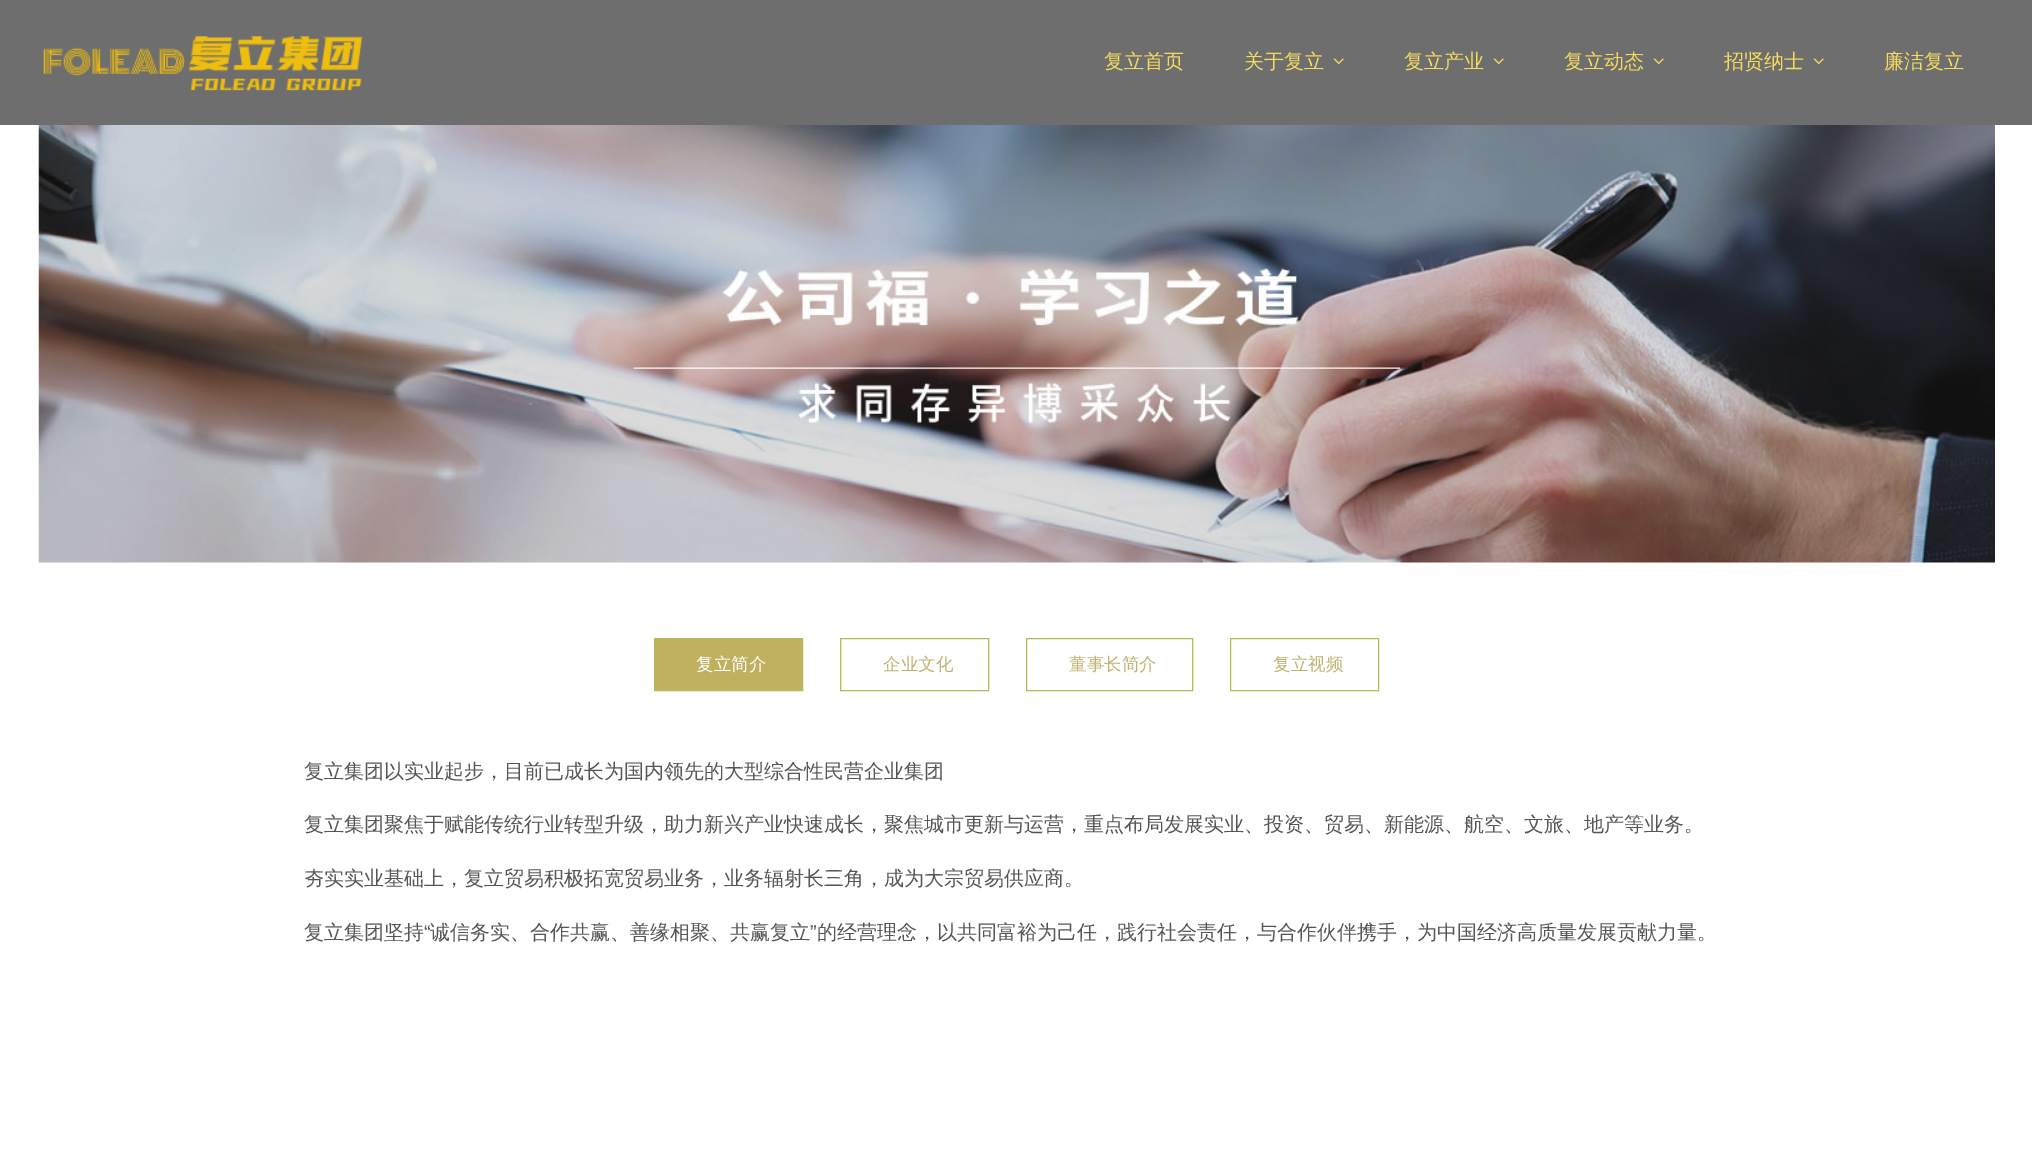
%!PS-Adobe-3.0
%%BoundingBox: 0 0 2032 1170
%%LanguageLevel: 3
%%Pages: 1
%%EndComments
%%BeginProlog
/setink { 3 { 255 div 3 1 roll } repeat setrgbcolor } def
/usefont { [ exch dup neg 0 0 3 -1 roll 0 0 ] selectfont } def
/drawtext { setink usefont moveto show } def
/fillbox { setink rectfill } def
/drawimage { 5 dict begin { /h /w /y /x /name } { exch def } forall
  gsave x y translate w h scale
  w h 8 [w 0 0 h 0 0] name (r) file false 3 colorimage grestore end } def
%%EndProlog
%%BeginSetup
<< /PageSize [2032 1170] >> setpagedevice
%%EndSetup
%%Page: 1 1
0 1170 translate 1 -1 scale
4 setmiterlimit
0 0 2032 1170 255 255 255 fillbox
0 0 2032 125 110 110 110 fillbox
(assets/img1.rgb) 43 36 320 55 drawimage
(复立首页) 1104 68 /WenQuanYiZenHei-Medium 20 245 220 94 drawtext
(关于复立) 1244 68 /WenQuanYiZenHei-Medium 20 245 220 94 drawtext
(assets/img2.rgb) 1333 58 11 7 drawimage
(复立产业) 1404 68 /WenQuanYiZenHei-Medium 20 245 220 94 drawtext
(assets/img2.rgb) 1493 58 11 7 drawimage
(复立动态) 1564 68 /WenQuanYiZenHei-Medium 20 245 220 94 drawtext
(assets/img2.rgb) 1653 58 11 7 drawimage
(招贤纳士) 1724 68 /WenQuanYiZenHei-Medium 20 245 220 94 drawtext
(assets/img2.rgb) 1813 58 11 7 drawimage
(廉洁复立) 1884 68 /WenQuanYiZenHei-Medium 20 245 220 94 drawtext
(assets/img3.rgb) 38 125 1957 438 drawimage
192 177 94 setink
654.5 638.5 moveto 802.5 638.5 lineto 802.5 690.5 lineto 654.5 690.5 lineto closepath gsave fill grestore
184 184 86 setink
stroke
(复立简介) 696 670 /WenQuanYiZenHei-Medium 17.5 255 255 255 drawtext
184 184 86 setink
840.5 638.5 148 52 rectstroke
(企业文化) 883 670 /WenQuanYiZenHei-Medium 17.5 193 177 115 drawtext
184 184 86 setink
1026.5 638.5 166 52 rectstroke
(董事长简介) 1069 670 /WenQuanYiZenHei-Medium 17.5 193 177 115 drawtext
184 184 86 setink
1230.5 638.5 148 52 rectstroke
(复立视频) 1273 670 /WenQuanYiZenHei-Medium 17.5 193 177 115 drawtext
(复立集团以实业起步，目前已成长为国内领先的大型综合性民营企业集团) 304 778 /WenQuanYiZenHei-Medium 20 85 85 85 drawtext
(复立集团聚焦于赋能传统行业转型升级，助力新兴产业快速成长，聚焦城市更新与运营，重点布局发展实业、投资、贸易、新能源、航空、文旅、地产等业务。) 304 831 /WenQuanYiZenHei-Medium 20 85 85 85 drawtext
(夯实实业基础上，复立贸易积极拓宽贸易业务，业务辐射长三角，成为大宗贸易供应商。) 304 885 /WenQuanYiZenHei-Medium 20 85 85 85 drawtext
(复立集团坚持) 304 939 /WenQuanYiZenHei-Medium 20 85 85 85 drawtext
(“) 424 939 /LiberationSans-Regular 20 85 85 85 drawtext
(诚信务实、合作共赢、善缘相聚、共赢复立) 430 939 /WenQuanYiZenHei-Medium 20 85 85 85 drawtext
(”) 810 939 /LiberationSans-Regular 20 85 85 85 drawtext
(的经营理念，以共同富裕为己任，践行社会责任，与合作伙伴携手，为中国经济高质量发展贡献力量。) 817 939 /WenQuanYiZenHei-Medium 20 85 85 85 drawtext
showpage
%%EOF
